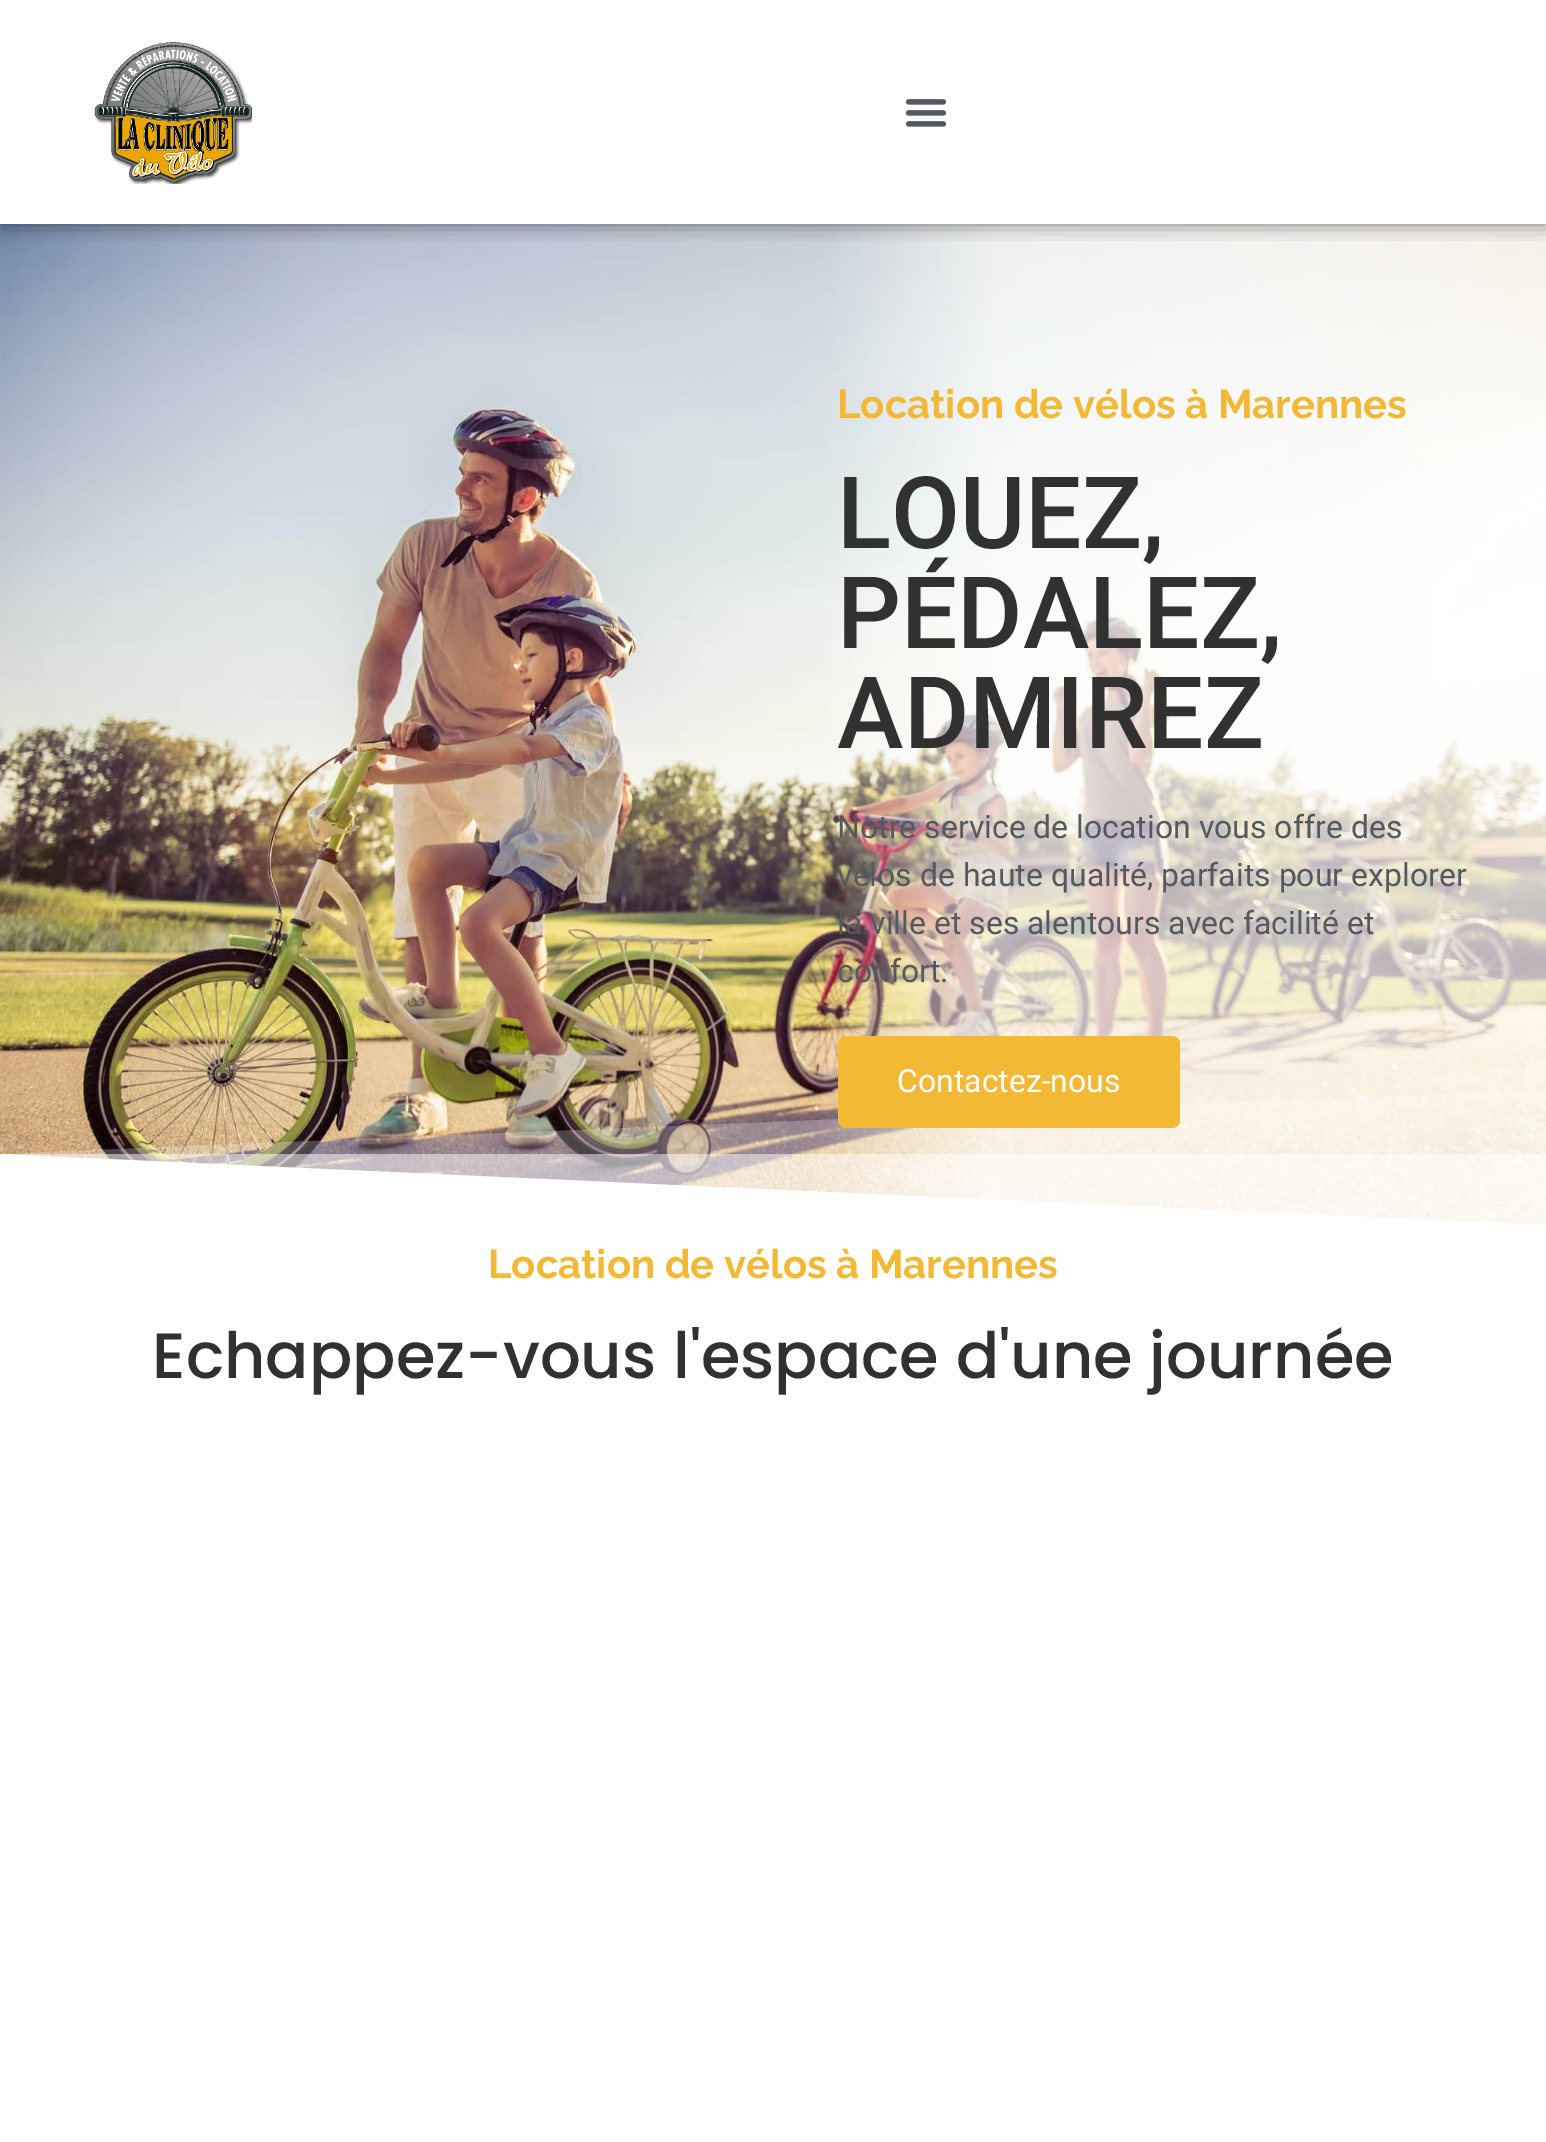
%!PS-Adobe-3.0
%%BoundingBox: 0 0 1546 2142
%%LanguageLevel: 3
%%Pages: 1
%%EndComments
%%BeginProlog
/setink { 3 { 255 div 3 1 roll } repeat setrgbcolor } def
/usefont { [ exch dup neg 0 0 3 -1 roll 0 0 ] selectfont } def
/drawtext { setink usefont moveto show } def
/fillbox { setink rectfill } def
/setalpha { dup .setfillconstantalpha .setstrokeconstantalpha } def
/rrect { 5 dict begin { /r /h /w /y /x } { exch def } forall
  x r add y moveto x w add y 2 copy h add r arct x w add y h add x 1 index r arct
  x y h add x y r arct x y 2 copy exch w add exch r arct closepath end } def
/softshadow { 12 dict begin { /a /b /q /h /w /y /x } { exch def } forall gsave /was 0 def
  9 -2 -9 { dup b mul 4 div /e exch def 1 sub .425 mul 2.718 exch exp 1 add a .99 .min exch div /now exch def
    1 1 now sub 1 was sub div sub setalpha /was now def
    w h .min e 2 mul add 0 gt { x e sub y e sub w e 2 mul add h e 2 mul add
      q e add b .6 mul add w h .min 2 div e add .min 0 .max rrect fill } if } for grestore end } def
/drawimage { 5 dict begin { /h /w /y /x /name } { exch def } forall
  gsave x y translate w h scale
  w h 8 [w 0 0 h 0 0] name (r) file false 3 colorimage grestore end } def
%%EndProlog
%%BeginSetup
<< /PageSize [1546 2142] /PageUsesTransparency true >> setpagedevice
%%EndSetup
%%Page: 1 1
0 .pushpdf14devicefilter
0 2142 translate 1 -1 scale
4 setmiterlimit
0 0 1546 2142 255 255 255 fillbox
(assets/img3.rgb) 0 224 1546 1000 drawimage
gsave
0 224 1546 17 rectclip
0 0 0 setink
0 0 1546 224 0 10 0.5 softshadow
grestore
(assets/img1.rgb) 94 42 158 142 drawimage
(assets/img2.rgb) 905 99 42 28 drawimage
(Location de vélos à Marennes) 837 418 /Raleway-Bold 40 243 184 52 drawtext
(LOUEZ,) 837 548 /Roboto-Medium 100 49 49 49 drawtext
(PÉDALEZ,) 837 648 /Roboto-Medium 100 49 49 49 drawtext
(ADMIREZ) 837 748 /Roboto-Medium 100 49 49 49 drawtext
(Notre service de location vous offre des) 837 838 /Roboto-Regular 32 84 89 95 drawtext
(vélos de haute qualité, parfaits pour explorer) 837 886 /Roboto-Regular 32 84 89 95 drawtext
(la ville et ses alentours avec facilité et) 837 934 /Roboto-Regular 32 84 89 95 drawtext
(confort.) 837 982 /Roboto-Regular 32 84 89 95 drawtext
255 255 255 setink
1546 1225 moveto -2 1225 lineto -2 1154 lineto closepath fill
0.5 setalpha
0 1154 1546 70 255 255 255 fillbox
0.25 setalpha
-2 1225 moveto 1546 1225 lineto 1546 1090 lineto -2 1154 lineto closepath fill
1 setalpha
243 184 52 setink
838 1036 342 92 8 rrect fill
(Contactez-nous) 897 1092 /Roboto-Regular 32 255 255 255 drawtext
(Location de vélos à Marennes) 488 1278 /Raleway-Bold 40 243 184 52 drawtext
(Echappez-vous l'espace d'une journée) 152 1378 /Poppins-Medium 64 49 49 49 drawtext
.poppdf14devicefilter showpage
%%EOF
